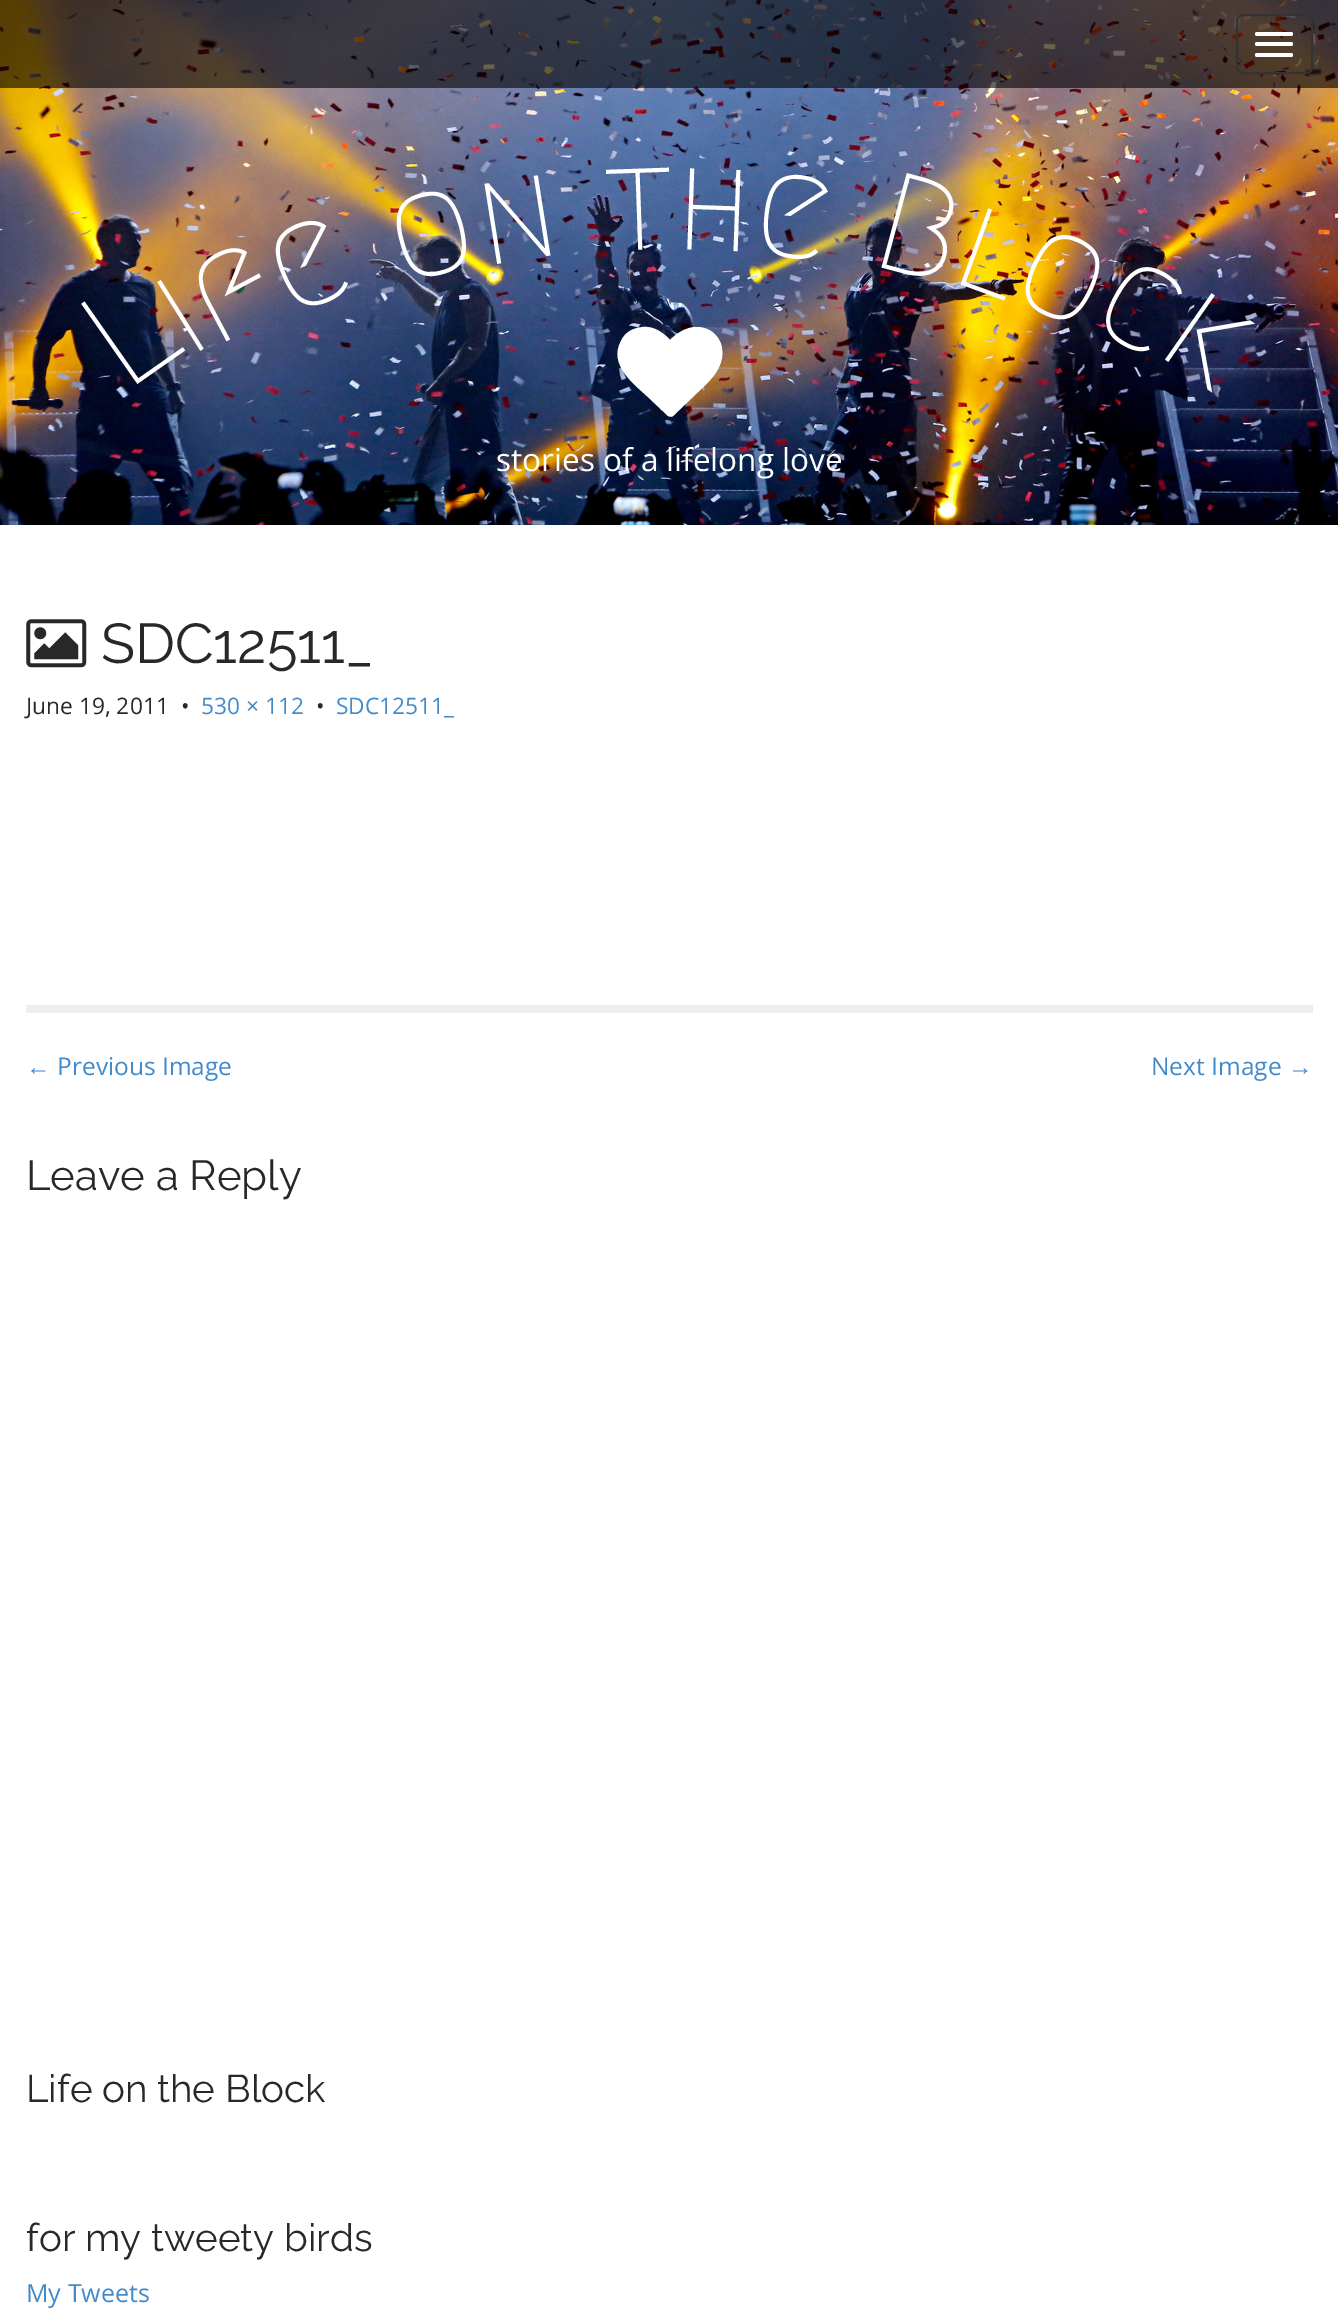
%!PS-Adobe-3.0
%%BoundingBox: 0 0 1338 2308
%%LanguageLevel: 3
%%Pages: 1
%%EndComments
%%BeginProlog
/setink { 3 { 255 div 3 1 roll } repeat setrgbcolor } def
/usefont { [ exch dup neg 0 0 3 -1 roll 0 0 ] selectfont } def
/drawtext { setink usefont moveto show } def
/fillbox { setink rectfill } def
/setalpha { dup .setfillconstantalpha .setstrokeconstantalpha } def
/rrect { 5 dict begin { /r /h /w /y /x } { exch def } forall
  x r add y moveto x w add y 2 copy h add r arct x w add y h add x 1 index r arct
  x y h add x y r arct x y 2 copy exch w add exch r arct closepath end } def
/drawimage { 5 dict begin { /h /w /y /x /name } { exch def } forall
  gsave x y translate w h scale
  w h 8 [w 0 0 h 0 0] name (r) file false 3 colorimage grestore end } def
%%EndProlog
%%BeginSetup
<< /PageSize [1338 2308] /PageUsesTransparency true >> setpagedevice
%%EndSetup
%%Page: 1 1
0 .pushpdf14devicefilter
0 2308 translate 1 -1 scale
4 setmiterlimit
0 0 1338 2308 255 255 255 fillbox
(assets/img1.rgb) 0 0 1338 525 drawimage
0.6 setalpha
0 0 1338 88 0 0 0 fillbox
1 setalpha
51 51 51 setink
2 setlinewidth
1237 15 75 58 6 rrect stroke
255 255 255 setink
1255 32 38 4 2 rrect fill
1255 42 38 4 2 rrect fill
1255 53 38 4 2 rrect fill
/Megrim-Medium 140 usefont
gsave 126 392 translate -35 rotate 0 0 moveto (L) show grestore
gsave 189 358 translate -32 rotate 0 0 moveto (i) show grestore
gsave 216 347 translate -28 rotate 0 0 moveto (f) show grestore
gsave 289 317 translate -23 rotate 0 0 moveto (e) show grestore
gsave 401 284 translate -15 rotate 0 0 moveto (o) show grestore
gsave 484 266 translate -9 rotate 0 0 moveto (n) show grestore
gsave 606 251 translate -2 rotate 0 0 moveto (t) show grestore
gsave 674 249 translate 2 rotate 0 0 moveto (h) show grestore
gsave 750 252 translate 7 rotate 0 0 moveto (e) show grestore
gsave 868 264 translate 15 rotate 0 0 moveto (B) show grestore
gsave 948 280 translate 20 rotate 0 0 moveto (l) show grestore
gsave 1007 296 translate 25 rotate 0 0 moveto (o) show grestore
gsave 1087 323 translate 30 rotate 0 0 moveto (c) show grestore
gsave 1154 352 translate 35 rotate 0 0 moveto (k) show grestore
673 416 moveto 672 417 670 417 668 416 curveto 649 398 lineto 634 384 608 365 621 341 curveto 625 332 633 328 643 327 curveto 653 326 663 332 670 340 curveto 681 329 696 322 711 331 curveto 717 335 721 341 722 348 curveto 723 355 722 361 719 367 curveto 714 378 705 385 697 393 curveto closepath fill
(stories of a lifelong love) 496 471 /OpenSans-Regular 31.5 255 255 255 drawtext
26 1005 1287 8 238 238 238 fillbox
(assets/img2.rgb) 26 619 61 49 drawimage
(SDC12511_) 101 663 /Raleway-Thin 56 40 40 40 drawtext
(June 19, 2011) 26 714 /OpenSans-Regular 22.75 40 40 40 drawtext
(•) 181 714 /OpenSans-Regular 22.75 40 40 40 drawtext
(530 × 112) 201 714 /OpenSans-Regular 22.75 66 139 202 drawtext
(•) 316 714 /OpenSans-Regular 22.75 40 40 40 drawtext
(SDC12511_) 336 714 /OpenSans-Regular 22.75 66 139 202 drawtext
(←) 26 1075 /LiberationSans-Regular 24.5 66 139 202 drawtext
(Previous Image) 57 1075 /OpenSans-Regular 24.5 66 139 202 drawtext
(Next Image) 1151 1075 /OpenSans-Regular 24.5 66 139 202 drawtext
(→) 1288 1075 /LiberationSans-Regular 24.5 66 139 202 drawtext
(Leave a Reply) 26 1190 /Raleway-Thin 42 40 40 40 drawtext
(Life on the Block) 26 2102 /Raleway-Thin 38.5 40 40 40 drawtext
(for my tweety birds) 26 2251 /Raleway-Thin 38.5 40 40 40 drawtext
(My Tweets) 26 2302 /OpenSans-Regular 25 66 139 202 drawtext
.poppdf14devicefilter showpage
%%EOF
